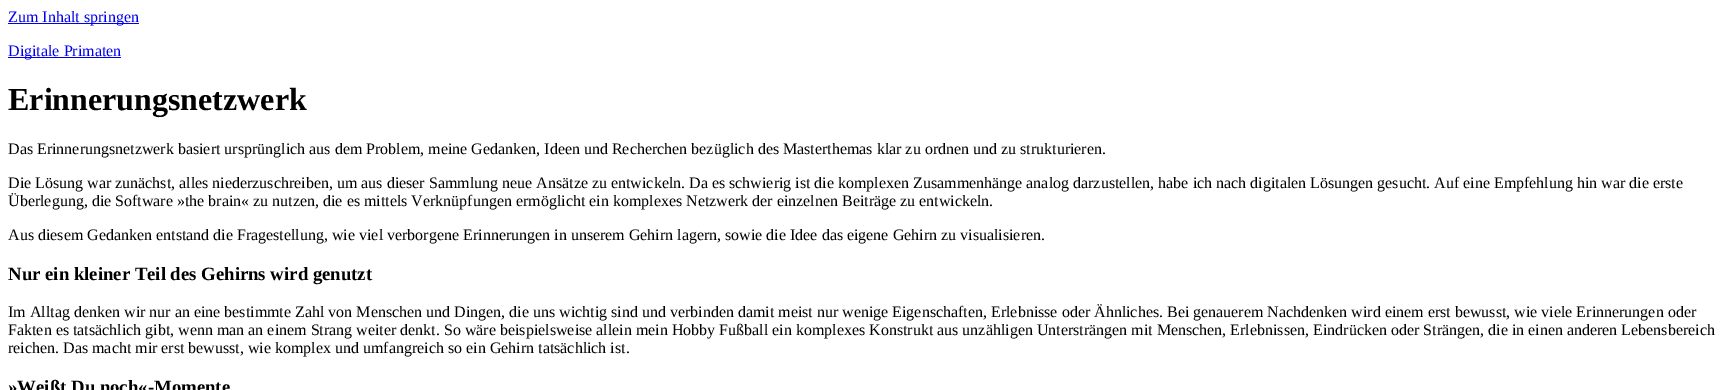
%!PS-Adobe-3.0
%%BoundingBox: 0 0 1735 390
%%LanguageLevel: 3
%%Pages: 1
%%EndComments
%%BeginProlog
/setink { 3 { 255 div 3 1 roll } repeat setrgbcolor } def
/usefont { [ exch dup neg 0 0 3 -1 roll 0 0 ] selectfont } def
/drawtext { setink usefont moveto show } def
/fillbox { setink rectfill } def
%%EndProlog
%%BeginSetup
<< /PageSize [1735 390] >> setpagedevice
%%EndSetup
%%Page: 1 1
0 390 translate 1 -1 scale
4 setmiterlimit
0 0 1735 390 255 255 255 fillbox
8 23 131 1 0 0 238 fillbox
(Zum Inhalt springen) 8 22 /LiberationSerif-Regular 16 0 0 238 drawtext
8 57 113 1 0 0 238 fillbox
(Digitale Primaten) 8 56 /LiberationSerif-Regular 16 0 0 238 drawtext
(Erinnerungsnetzwerk) 8 110 /LiberationSerif-Bold 32 0 0 0 drawtext
(Das Erinnerungsnetzwerk basiert ursprünglich aus dem Problem, meine Gedanken, Ideen und Recherchen bezüglich des Masterthemas klar zu ordnen und zu strukturieren.) 8 154 /LiberationSerif-Regular 16 0 0 0 drawtext
(Die Lösung war zunächst, alles niederzuschreiben, um aus dieser Sammlung neue Ansätze zu entwickeln. Da es schwierig ist die komplexen Zusammenhänge analog darzustellen, habe ich nach digitalen Lösungen gesucht. Auf eine Empfehlung hin war die erste) 8 188 /LiberationSerif-Regular 16 0 0 0 drawtext
(Überlegung, die Software »the brain« zu nutzen, die es mittels Verknüpfungen ermöglicht ein komplexes Netzwerk der einzelnen Beiträge zu entwickeln.) 8 206 /LiberationSerif-Regular 16 0 0 0 drawtext
(Aus diesem Gedanken entstand die Fragestellung, wie viel verborgene Erinnerungen in unserem Gehirn lagern, sowie die Idee das eigene Gehirn zu visualisieren.) 8 240 /LiberationSerif-Regular 16 0 0 0 drawtext
(Nur ein kleiner Teil des Gehirns wird genutzt) 8 280 /LiberationSerif-Bold 18.75 0 0 0 drawtext
(Im Alltag denken wir nur an eine bestimmte Zahl von Menschen und Dingen, die uns wichtig sind und verbinden damit meist nur wenige Eigenschaften, Erlebnisse oder Ähnliches. Bei genauerem Nachdenken wird einem erst bewusst, wie viele Erinnerungen oder) 8 317 /LiberationSerif-Regular 16 0 0 0 drawtext
(Fakten es tatsächlich gibt, wenn man an einem Strang weiter denkt. So wäre beispielsweise allein mein Hobby Fußball ein komplexes Konstrukt aus unzähligen Untersträngen mit Menschen, Erlebnissen, Eindrücken oder Strängen, die in einen anderen Lebensbereich) 8 335 /LiberationSerif-Regular 16 0 0 0 drawtext
(reichen. Das macht mir erst bewusst, wie komplex und umfangreich so ein Gehirn tatsächlich ist.) 8 353 /LiberationSerif-Regular 16 0 0 0 drawtext
(»Weißt Du noch«-Momente) 8 393 /LiberationSerif-Bold 18.75 0 0 0 drawtext
showpage
%%EOF
